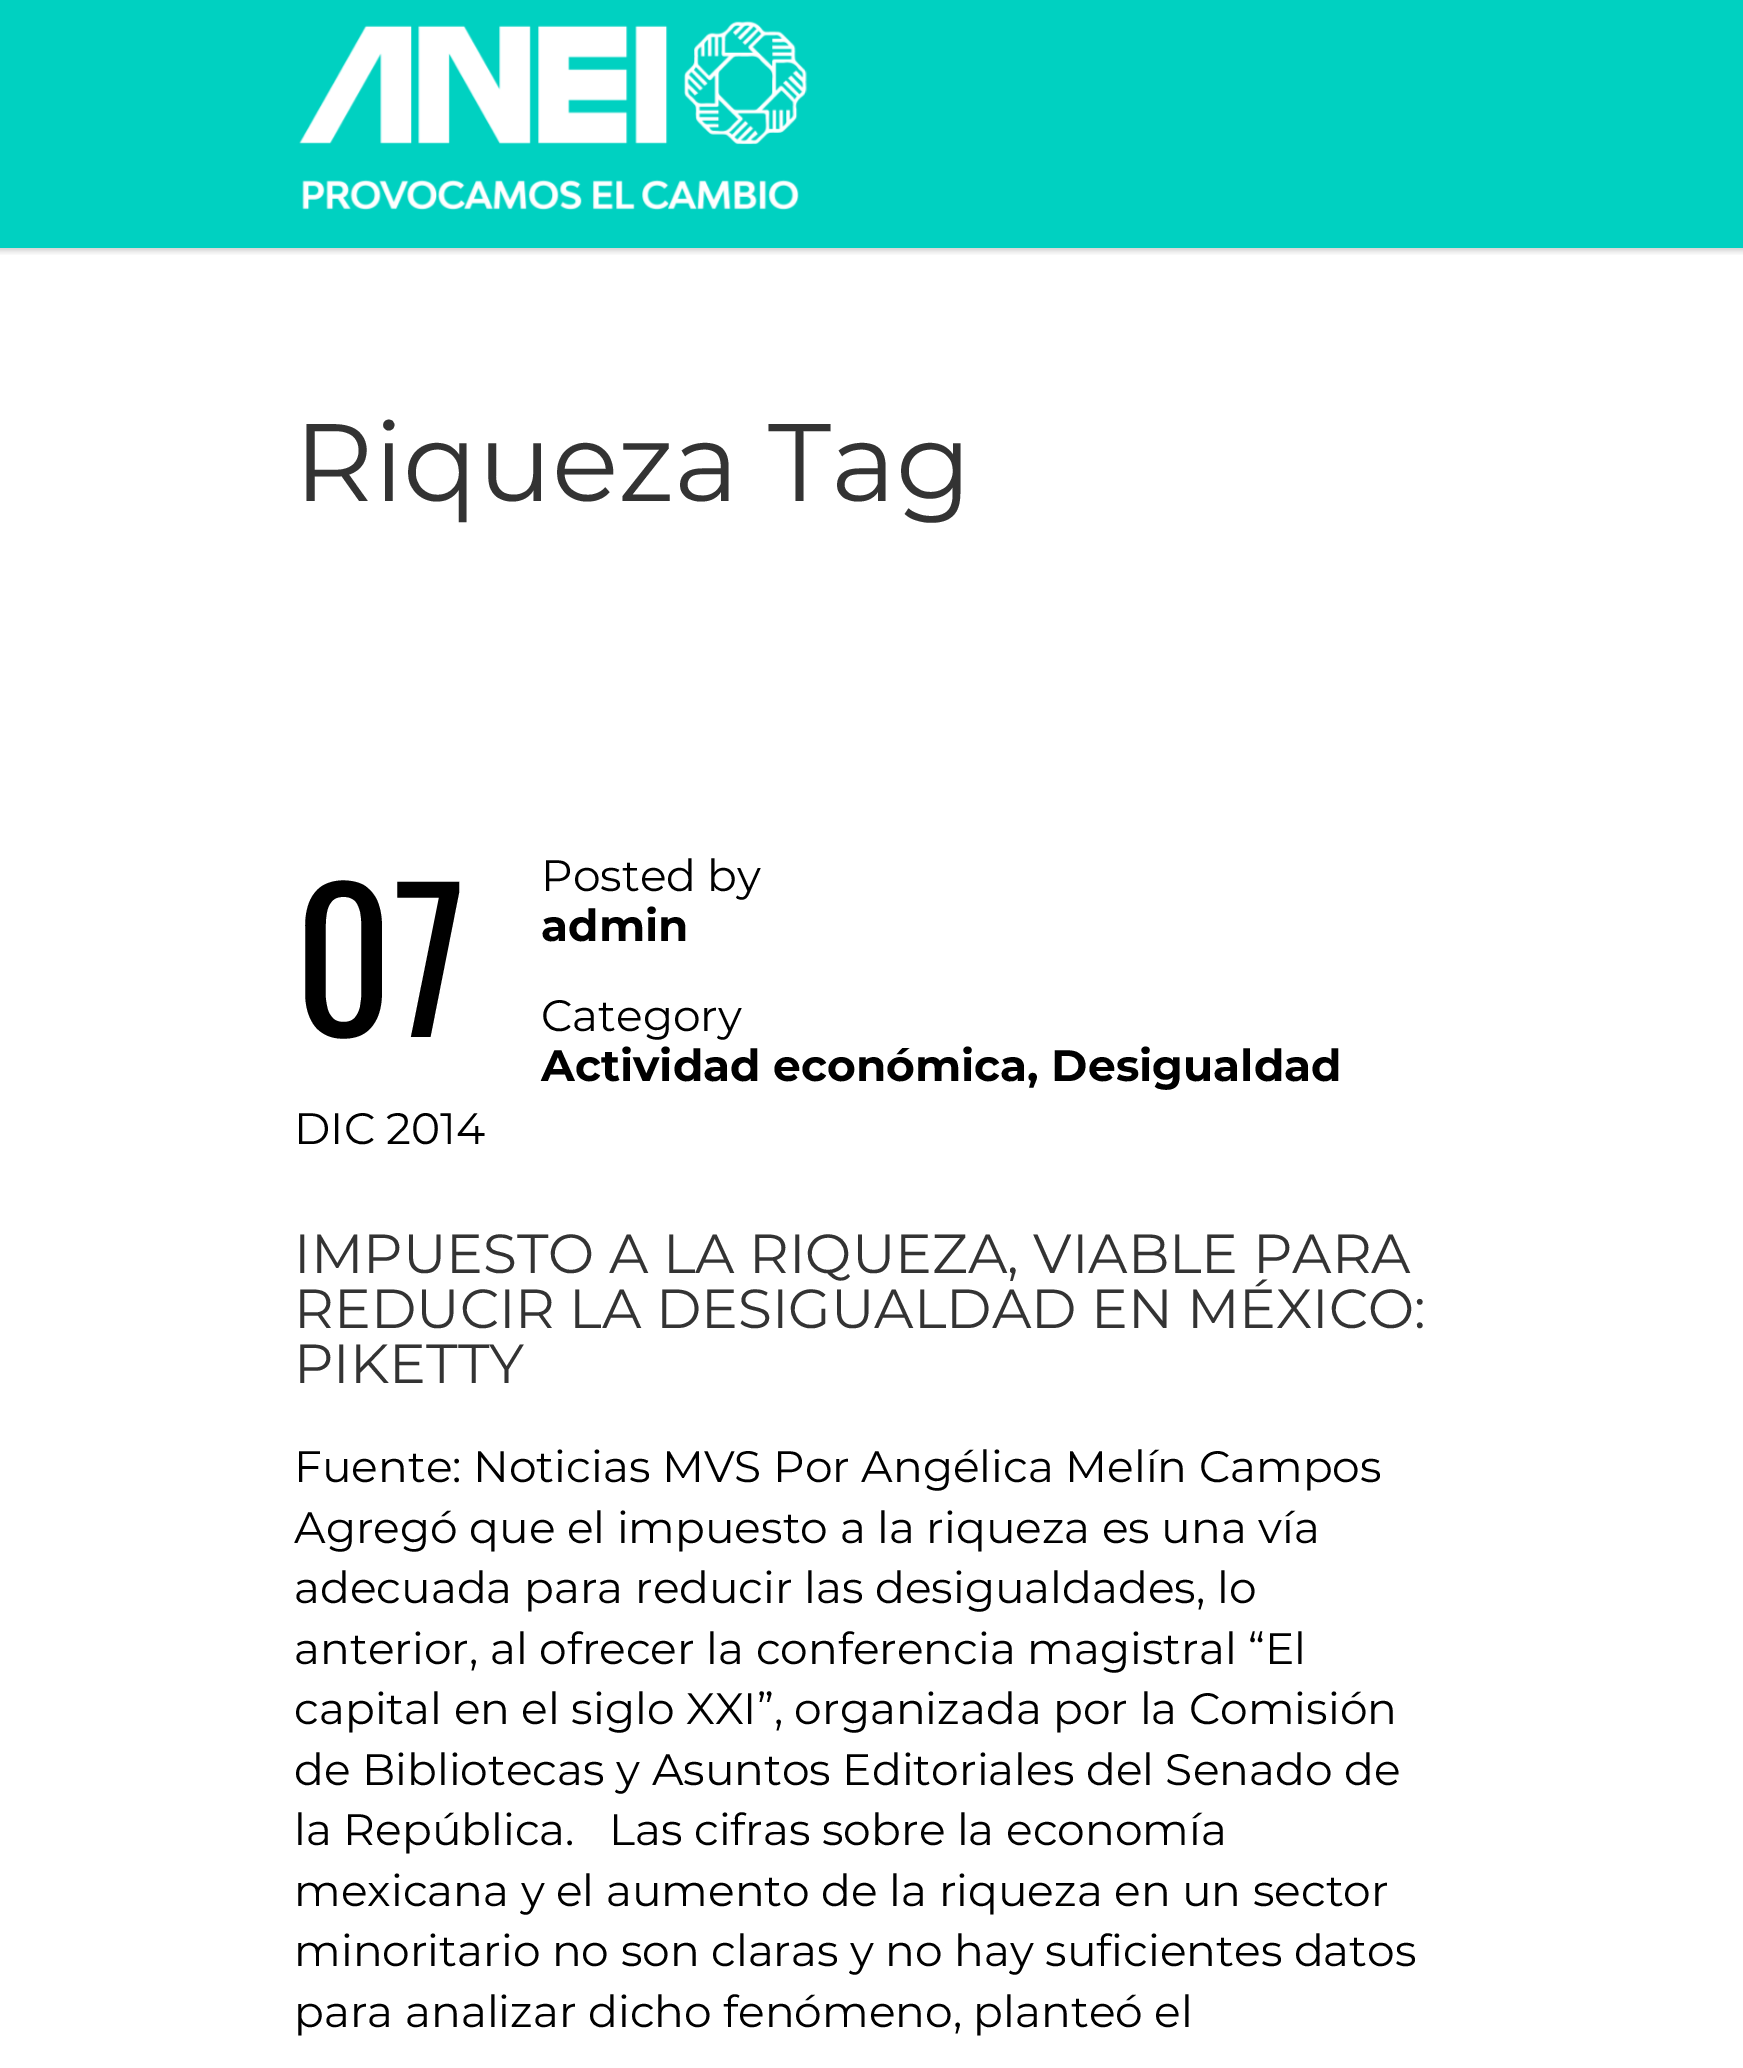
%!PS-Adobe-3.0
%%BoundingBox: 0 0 1743 2068
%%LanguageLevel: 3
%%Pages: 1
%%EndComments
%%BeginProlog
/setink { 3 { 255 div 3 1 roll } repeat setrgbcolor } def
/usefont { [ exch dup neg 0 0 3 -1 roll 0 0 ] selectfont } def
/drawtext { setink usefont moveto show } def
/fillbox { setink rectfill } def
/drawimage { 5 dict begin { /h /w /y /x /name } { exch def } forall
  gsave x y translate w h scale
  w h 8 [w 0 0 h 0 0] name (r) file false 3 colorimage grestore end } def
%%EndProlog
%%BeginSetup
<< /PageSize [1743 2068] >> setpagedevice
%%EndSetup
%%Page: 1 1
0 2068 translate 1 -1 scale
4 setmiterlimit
0 0 1743 2068 255 255 255 fillbox
(assets/img1.rgb) 0 248 1743 7 drawimage
0 0 1743 248 0 209 193 fillbox
(assets/img2.rgb) 299 20 509 190 drawimage
(Riqueza Tag) 294 501 /Montserrat-Regular 110 51 51 51 drawtext
(07) 294 1037 /Oswald-Regular 192 0 0 0 drawtext
(DIC 2014) 294 1144 /Montserrat-Regular 44 0 0 0 drawtext
(Posted by) 541 891 /Montserrat-Regular 44 0 0 0 drawtext
(admin) 541 941 /Montserrat-Bold 44 0 0 0 drawtext
(Category) 541 1031 /Montserrat-Regular 44 0 0 0 drawtext
(Actividad económica, Desigualdad) 541 1081 /Montserrat-Bold 44 0 0 0 drawtext
(IMPUESTO A LA RIQUEZA, VIABLE PARA) 294 1273 /Montserrat-Regular 55 51 51 51 drawtext
(REDUCIR LA DESIGUALDAD EN MÉXICO:) 294 1328 /Montserrat-Regular 55 51 51 51 drawtext
(PIKETTY) 294 1383 /Montserrat-Regular 55 51 51 51 drawtext
(Fuente: Noticias MVS Por Angélica Melín Campos) 294 1482 /Montserrat-Regular 44 0 0 0 drawtext
(Agregó que el impuesto a la riqueza es una vía) 294 1543 /Montserrat-Regular 44 0 0 0 drawtext
(adecuada para reducir las desigualdades, lo) 294 1603 /Montserrat-Regular 44 0 0 0 drawtext
(anterior, al ofrecer la conferencia magistral “El) 294 1664 /Montserrat-Regular 44 0 0 0 drawtext
(capital en el siglo XXI”, organizada por la Comisión) 294 1724 /Montserrat-Regular 44 0 0 0 drawtext
(de Bibliotecas y Asuntos Editoriales del Senado de) 294 1785 /Montserrat-Regular 44 0 0 0 drawtext
(la República.) 294 1845 /Montserrat-Regular 44 0 0 0 drawtext
(Las cifras sobre la economía) 609 1845 /Montserrat-Regular 44 0 0 0 drawtext
(mexicana y el aumento de la riqueza en un sector) 294 1906 /Montserrat-Regular 44 0 0 0 drawtext
(minoritario no son claras y no hay suficientes datos) 294 1966 /Montserrat-Regular 44 0 0 0 drawtext
(para analizar dicho fenómeno, planteó el) 294 2027 /Montserrat-Regular 44 0 0 0 drawtext
showpage
%%EOF
